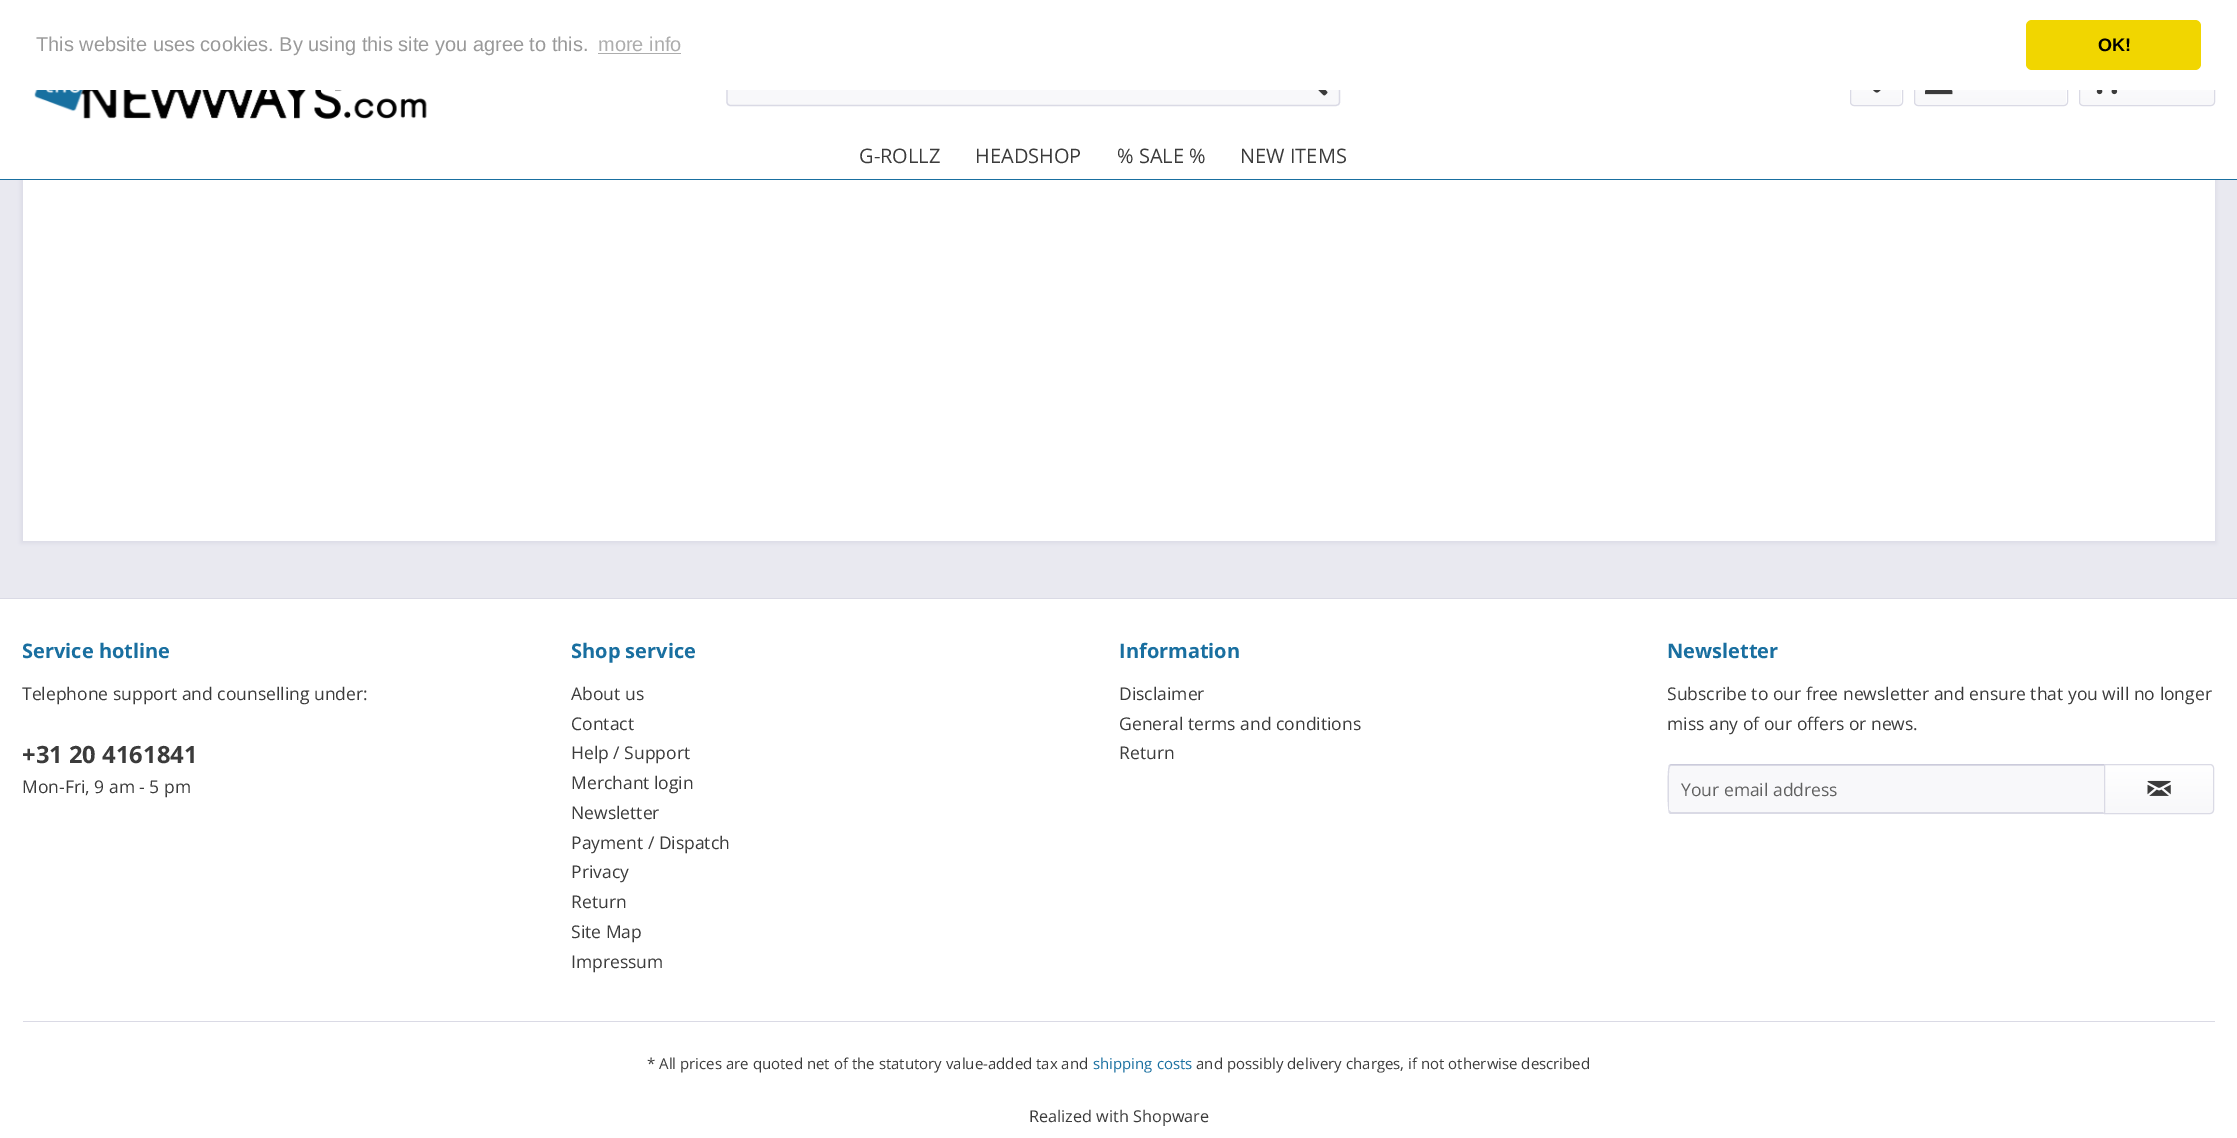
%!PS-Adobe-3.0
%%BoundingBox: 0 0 2237 1138
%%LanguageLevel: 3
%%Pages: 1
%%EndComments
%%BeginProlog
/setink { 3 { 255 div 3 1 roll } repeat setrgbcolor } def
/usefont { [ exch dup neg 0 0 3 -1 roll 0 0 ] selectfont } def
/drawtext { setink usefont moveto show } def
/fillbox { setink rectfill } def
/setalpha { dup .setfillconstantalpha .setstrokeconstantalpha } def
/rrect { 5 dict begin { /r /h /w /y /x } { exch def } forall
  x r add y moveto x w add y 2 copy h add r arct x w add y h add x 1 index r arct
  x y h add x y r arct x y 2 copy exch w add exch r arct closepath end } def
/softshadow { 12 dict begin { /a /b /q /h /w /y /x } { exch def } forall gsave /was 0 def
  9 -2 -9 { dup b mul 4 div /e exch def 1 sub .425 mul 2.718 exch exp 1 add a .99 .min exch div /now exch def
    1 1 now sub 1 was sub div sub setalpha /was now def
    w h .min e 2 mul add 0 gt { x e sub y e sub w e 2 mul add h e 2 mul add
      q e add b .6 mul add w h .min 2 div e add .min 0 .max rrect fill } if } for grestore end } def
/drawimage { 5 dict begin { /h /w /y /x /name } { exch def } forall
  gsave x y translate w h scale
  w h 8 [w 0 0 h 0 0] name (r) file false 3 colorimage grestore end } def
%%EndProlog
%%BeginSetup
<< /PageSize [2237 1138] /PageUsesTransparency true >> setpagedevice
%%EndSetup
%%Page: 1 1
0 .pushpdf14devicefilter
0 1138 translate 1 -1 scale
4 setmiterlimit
0 0 2237 1138 233 233 240 fillbox
218 218 229 setink
21 -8 2195 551 0 2.5 1 softshadow
0 90 2237 89 255 255 255 fillbox
248 248 250 setink
726 56 614 50 4 rrect fill
218 218 229 setink
1.2 setlinewidth
1338.5 58 moveto 1339.5 60 lineto 1339.5 102.5 lineto 1338.5 104.5 lineto 1336 105.5 lineto 730 105.5 lineto 728 104.5 lineto 727 102.5 lineto 727 60 lineto 728 58 lineto stroke
gsave 1851 58 50 47 2.5 rrect clip newpath
<< /ShadingType 2 /ColorSpace /DeviceRGB /Coords [1876 58 1876 105] /Extend [true true] /Function << /FunctionType 2 /Domain [0 1] /C0 [1 1 1] /C1 [0.973 0.973 0.98] /N 1 >> >> shfill grestore
1 setlinewidth
1850.5 56.5 52 49 3.5 rrect stroke
gsave 1915 58 151 47 2.5 rrect clip newpath
<< /ShadingType 2 /ColorSpace /DeviceRGB /Coords [1991 57 1991 105] /Extend [true true] /Function << /FunctionType 2 /Domain [0 1] /C0 [1 1 1] /C1 [0.973 0.973 0.98] /N 1 >> >> shfill grestore
1914.5 56.5 153 49 3.5 rrect stroke
gsave 2080 58 134 47 2.5 rrect clip newpath
<< /ShadingType 2 /ColorSpace /DeviceRGB /Coords [2147 57 2147 105] /Extend [true true] /Function << /FunctionType 2 /Domain [0 1] /C0 [1 1 1] /C1 [0.973 0.973 0.98] /N 1 >> >> shfill grestore
2079.5 56.5 135 49 3.5 rrect stroke
0 0 2237 90 255 255 255 fillbox
(This website uses cookies. By using this site you agree to this.) 36 51 /LiberationSans-Regular 20 153 153 153 drawtext
(more info) 598 51 /LiberationSans-Regular 20 173 173 173 drawtext
598 53 83 1 173 173 173 fillbox
241 214 0 setink
2026 20 175 50 6 rrect fill
(OK!) 2098 51 /LiberationSans-Bold 18 0 0 0 drawtext
23 180 2192 361 255 255 255 fillbox
(assets/img1.rgb) 34 90 393 29 drawimage
(assets/img2.rgb) 1318 90 10 6 drawimage
(assets/img3.rgb) 1873 90 8 3 drawimage
(assets/img4.rgb) 1925 90 28 5 drawimage
(assets/img5.rgb) 2096 90 22 5 drawimage
0 179 2237 1 25 111 160 fillbox
(G-ROLLZ) 859 163 /OpenSans-Regular 20 59 59 59 drawtext
(HEADSHOP) 975 163 /OpenSans-Regular 20 59 59 59 drawtext
(% SALE %) 1117 163 /OpenSans-Regular 20 59 59 59 drawtext
(NEW ITEMS) 1240 163 /OpenSans-Regular 20 59 59 59 drawtext
0 599 2237 539 255 255 255 fillbox
0 598 2237 1 218 218 229 fillbox
23 1021 2192 1 218 218 229 fillbox
(Service hotline) 22 658 /OpenSans-Bold 20 25 111 160 drawtext
(Telephone support and counselling under:) 22 700 /OpenSans-Regular 17.5 59 59 59 drawtext
(+31 20 4161841) 22 763 /OpenSans-Bold 23.75 59 59 59 drawtext
(Mon-Fri, 9 am - 5 pm) 22 793 /OpenSans-Regular 17.5 59 59 59 drawtext
(Shop service) 571 658 /OpenSans-Bold 20 25 111 160 drawtext
(About us) 571 700 /OpenSans-Regular 17.5 59 59 59 drawtext
(Contact) 571 730 /OpenSans-Regular 17.5 59 59 59 drawtext
(Help / Support) 571 759 /OpenSans-Regular 17.5 59 59 59 drawtext
(Merchant login) 571 789 /OpenSans-Regular 17.5 59 59 59 drawtext
(Newsletter) 571 819 /OpenSans-Regular 17.5 59 59 59 drawtext
(Payment / Dispatch) 571 849 /OpenSans-Regular 17.5 59 59 59 drawtext
(Privacy) 571 878 /OpenSans-Regular 17.5 59 59 59 drawtext
(Return) 571 908 /OpenSans-Regular 17.5 59 59 59 drawtext
(Site Map) 571 938 /OpenSans-Regular 17.5 59 59 59 drawtext
(Impressum) 571 968 /OpenSans-Regular 17.5 59 59 59 drawtext
(Information) 1119 658 /OpenSans-Bold 20 25 111 160 drawtext
(Disclaimer) 1119 700 /OpenSans-Regular 17.5 59 59 59 drawtext
(General terms and conditions) 1119 730 /OpenSans-Regular 17.5 59 59 59 drawtext
(Return) 1119 759 /OpenSans-Regular 17.5 59 59 59 drawtext
(Newsletter) 1667 658 /OpenSans-Bold 20 25 111 160 drawtext
(Subscribe to our free newsletter and ensure that you will no longer) 1667 700 /OpenSans-Regular 17.5 59 59 59 drawtext
(miss any of our offers or news.) 1667 730 /OpenSans-Regular 17.5 59 59 59 drawtext
248 248 250 setink
1671.5 765 moveto 2104 765 lineto 2104 813 lineto 1671.5 813 lineto 1670 813 1669 812 1669 810.5 curveto 1669 767.5 lineto 1669 766 1670 765 1671.5 765 curveto closepath fill
218 218 229 setink
1671 766 moveto 2104 766 lineto 2104 765 lineto 1672 765 lineto 1669 766 lineto 1669 769 lineto 1669 767 1670 766 1671 766 curveto closepath fill
203 203 219 setink
1671 764 moveto 1669 765 lineto 1670 766 lineto 1671 765 lineto 2104 765 lineto 2105 764 lineto closepath fill
218 218 229 setink
2105 814 moveto 1670 814 lineto 1669 813 lineto 1670 811 lineto 1671 812 lineto 2103 812 lineto closepath fill
1669 765 moveto 1667 767 1667 810 1669 813 curveto 1670 811 lineto 1669 810 lineto 1669 807 1668 767 1670 766 curveto closepath fill
(Your email address) 1681 796 /OpenSans-Regular 17.5 97 97 97 drawtext
gsave 2105 765 moveto 2210.5 765 lineto 2212 765 2213 766 2213 767.5 curveto 2213 810.5 lineto 2213 812 2212 813 2210.5 813 curveto 2105 813 lineto closepath clip newpath
<< /ShadingType 2 /ColorSpace /DeviceRGB /Coords [2159 765 2159 813] /Extend [true true] /Function << /FunctionType 2 /Domain [0 1] /C0 [1 1 1] /C1 [0.973 0.973 0.98] /N 1 >> >> shfill grestore
218 218 229 setink
2104.5 764.5 moveto 2210 764.5 lineto 2212 764.5 2213.5 766 2213.5 768 curveto 2213.5 810 lineto 2213.5 812 2212 813.5 2210 813.5 curveto 2104.5 813.5 lineto closepath stroke
(assets/img6.rgb) 2147 780 24 16 drawimage
(* All prices are quoted net of the statutory value-added tax and) 647 1069 /OpenSans-Regular 15 59 59 59 drawtext
(shipping costs) 1093 1069 /OpenSans-Regular 15 25 111 160 drawtext
(and possibly delivery charges, if not otherwise described) 1196 1069 /OpenSans-Regular 15 59 59 59 drawtext
(Realized with Shopware) 1029 1122 /OpenSans-Regular 16.25 59 59 59 drawtext
.poppdf14devicefilter showpage
%%EOF
